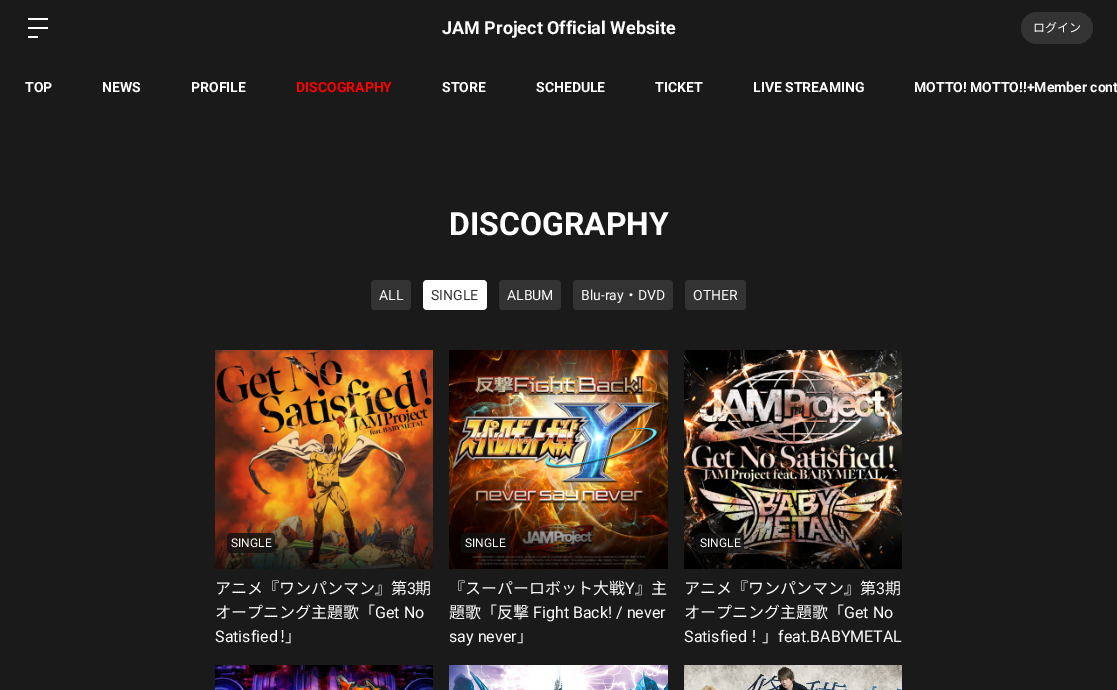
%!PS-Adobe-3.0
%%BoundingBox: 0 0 1117 690
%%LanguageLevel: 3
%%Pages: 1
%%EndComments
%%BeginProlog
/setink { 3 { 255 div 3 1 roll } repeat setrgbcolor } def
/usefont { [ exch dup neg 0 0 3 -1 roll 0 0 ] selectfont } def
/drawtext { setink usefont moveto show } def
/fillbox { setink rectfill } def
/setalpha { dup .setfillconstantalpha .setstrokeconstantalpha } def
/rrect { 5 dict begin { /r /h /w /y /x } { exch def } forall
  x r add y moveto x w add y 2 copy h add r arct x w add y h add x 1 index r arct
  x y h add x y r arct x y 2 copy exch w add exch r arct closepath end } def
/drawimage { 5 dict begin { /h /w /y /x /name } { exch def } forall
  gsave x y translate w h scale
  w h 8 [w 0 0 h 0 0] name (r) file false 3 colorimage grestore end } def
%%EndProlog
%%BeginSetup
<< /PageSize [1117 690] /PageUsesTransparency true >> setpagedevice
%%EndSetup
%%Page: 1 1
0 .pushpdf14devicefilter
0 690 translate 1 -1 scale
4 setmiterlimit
0 0 1117 690 26 26 26 fillbox
28 18 20 2 255 255 255 fillbox
28 27 20 2 255 255 255 fillbox
28 36 10 2 255 255 255 fillbox
(JAM Project Official Website) 442 34 /Roboto-Bold 18 255 255 255 drawtext
51 51 51 setink
1021 12 72 32 16 rrect fill
(ログイン) 1033 32 /NotoSansJP-Regular 12 255 255 255 drawtext
(TOP) 25 92 /Roboto-Bold 14 255 255 255 drawtext
(NEWS) 102 92 /Roboto-Bold 14 255 255 255 drawtext
(PROFILE) 191 92 /Roboto-Bold 14 255 255 255 drawtext
(DISCOGRAPHY) 296 92 /Roboto-Bold 14 250 0 0 drawtext
(STORE) 442 92 /Roboto-Bold 14 255 255 255 drawtext
(SCHEDULE) 536 92 /Roboto-Bold 14 255 255 255 drawtext
(TICKET) 655 92 /Roboto-Bold 14 255 255 255 drawtext
(LIVE STREAMING) 753 92 /Roboto-Bold 14 255 255 255 drawtext
(MOTTO! MOTTO!!+Member cont) 914 92 /Roboto-Bold 14 255 255 255 drawtext
(DISCOGRAPHY) 449 235 /Roboto-Bold 32 255 255 255 drawtext
51 51 51 setink
371 280 40 30 4 rrect fill
(ALL) 379 300 /Roboto-Regular 14 255 255 255 drawtext
423 280 64 30 4 rrect fill
(SINGLE) 431 300 /Roboto-Regular 14 51 51 51 drawtext
499 280 62 30 4 rrect fill
(ALBUM) 507 300 /Roboto-Regular 14 255 255 255 drawtext
51 51 51 setink
573 280 100 30 4 rrect fill
(Blu-ray) 581 300 /Roboto-Regular 14 255 255 255 drawtext
(・) 624 300 /NotoSansJP-Regular 14 255 255 255 drawtext
(DVD) 638 300 /Roboto-Regular 14 255 255 255 drawtext
51 51 51 setink
685 280 61 30 4 rrect fill
(OTHER) 693 300 /Roboto-Regular 14 255 255 255 drawtext
(assets/img1.rgb) 215 350 218 219 drawimage
0.8 setalpha
17 17 17 setink
227 533 48 20 4 rrect fill
1 setalpha
(SINGLE) 231 547 /Roboto-Regular 12 255 255 255 drawtext
(アニメ『ワンパンマン』第) 215 594 /NotoSansJP-Regular 16 255 255 255 drawtext
(3) 407 594 /Roboto-Regular 16 255 255 255 drawtext
(期) 415 594 /NotoSansJP-Regular 16 255 255 255 drawtext
(オープニング主題歌「) 215 618 /NotoSansJP-Regular 16 255 255 255 drawtext
(Get No) 375 618 /Roboto-Regular 16 255 255 255 drawtext
(Satisfied) 215 642 /Roboto-Regular 16 255 255 255 drawtext
(!」) 280 642 /NotoSansJP-Regular 16 255 255 255 drawtext
(assets/img2.rgb) 449 350 219 219 drawimage
0.8 setalpha
17 17 17 setink
461 533 49 20 4 rrect fill
1 setalpha
(SINGLE) 465 547 /Roboto-Regular 12 255 255 255 drawtext
(『スーパーロボット大戦) 449 594 /NotoSansJP-Regular 16 255 255 255 drawtext
(Y) 625 594 /Roboto-Regular 16 255 255 255 drawtext
(』主) 635 594 /NotoSansJP-Regular 16 255 255 255 drawtext
(題歌「反撃) 449 618 /NotoSansJP-Regular 16 255 255 255 drawtext
(Fight Back! / never) 533 618 /Roboto-Regular 16 255 255 255 drawtext
(say never) 449 642 /Roboto-Regular 16 255 255 255 drawtext
(」) 517 642 /NotoSansJP-Regular 16 255 255 255 drawtext
(assets/img3.rgb) 684 350 218 219 drawimage
0.8 setalpha
17 17 17 setink
696 533 48 20 4 rrect fill
1 setalpha
(SINGLE) 700 547 /Roboto-Regular 12 255 255 255 drawtext
(アニメ『ワンパンマン』第) 684 594 /NotoSansJP-Regular 16 255 255 255 drawtext
(3) 876 594 /Roboto-Regular 16 255 255 255 drawtext
(期) 885 594 /NotoSansJP-Regular 16 255 255 255 drawtext
(オープニング主題歌「) 684 618 /NotoSansJP-Regular 16 255 255 255 drawtext
(Get No) 844 618 /Roboto-Regular 16 255 255 255 drawtext
(Satisfied) 684 642 /Roboto-Regular 16 255 255 255 drawtext
(！」) 746 642 /NotoSansJP-Regular 16 255 255 255 drawtext
(feat.BABYMETAL) 778 642 /Roboto-Regular 16 255 255 255 drawtext
(assets/img4.rgb) 215 665 218 25 drawimage
(assets/img5.rgb) 449 665 219 25 drawimage
(assets/img6.rgb) 684 665 218 25 drawimage
.poppdf14devicefilter showpage
%%EOF
